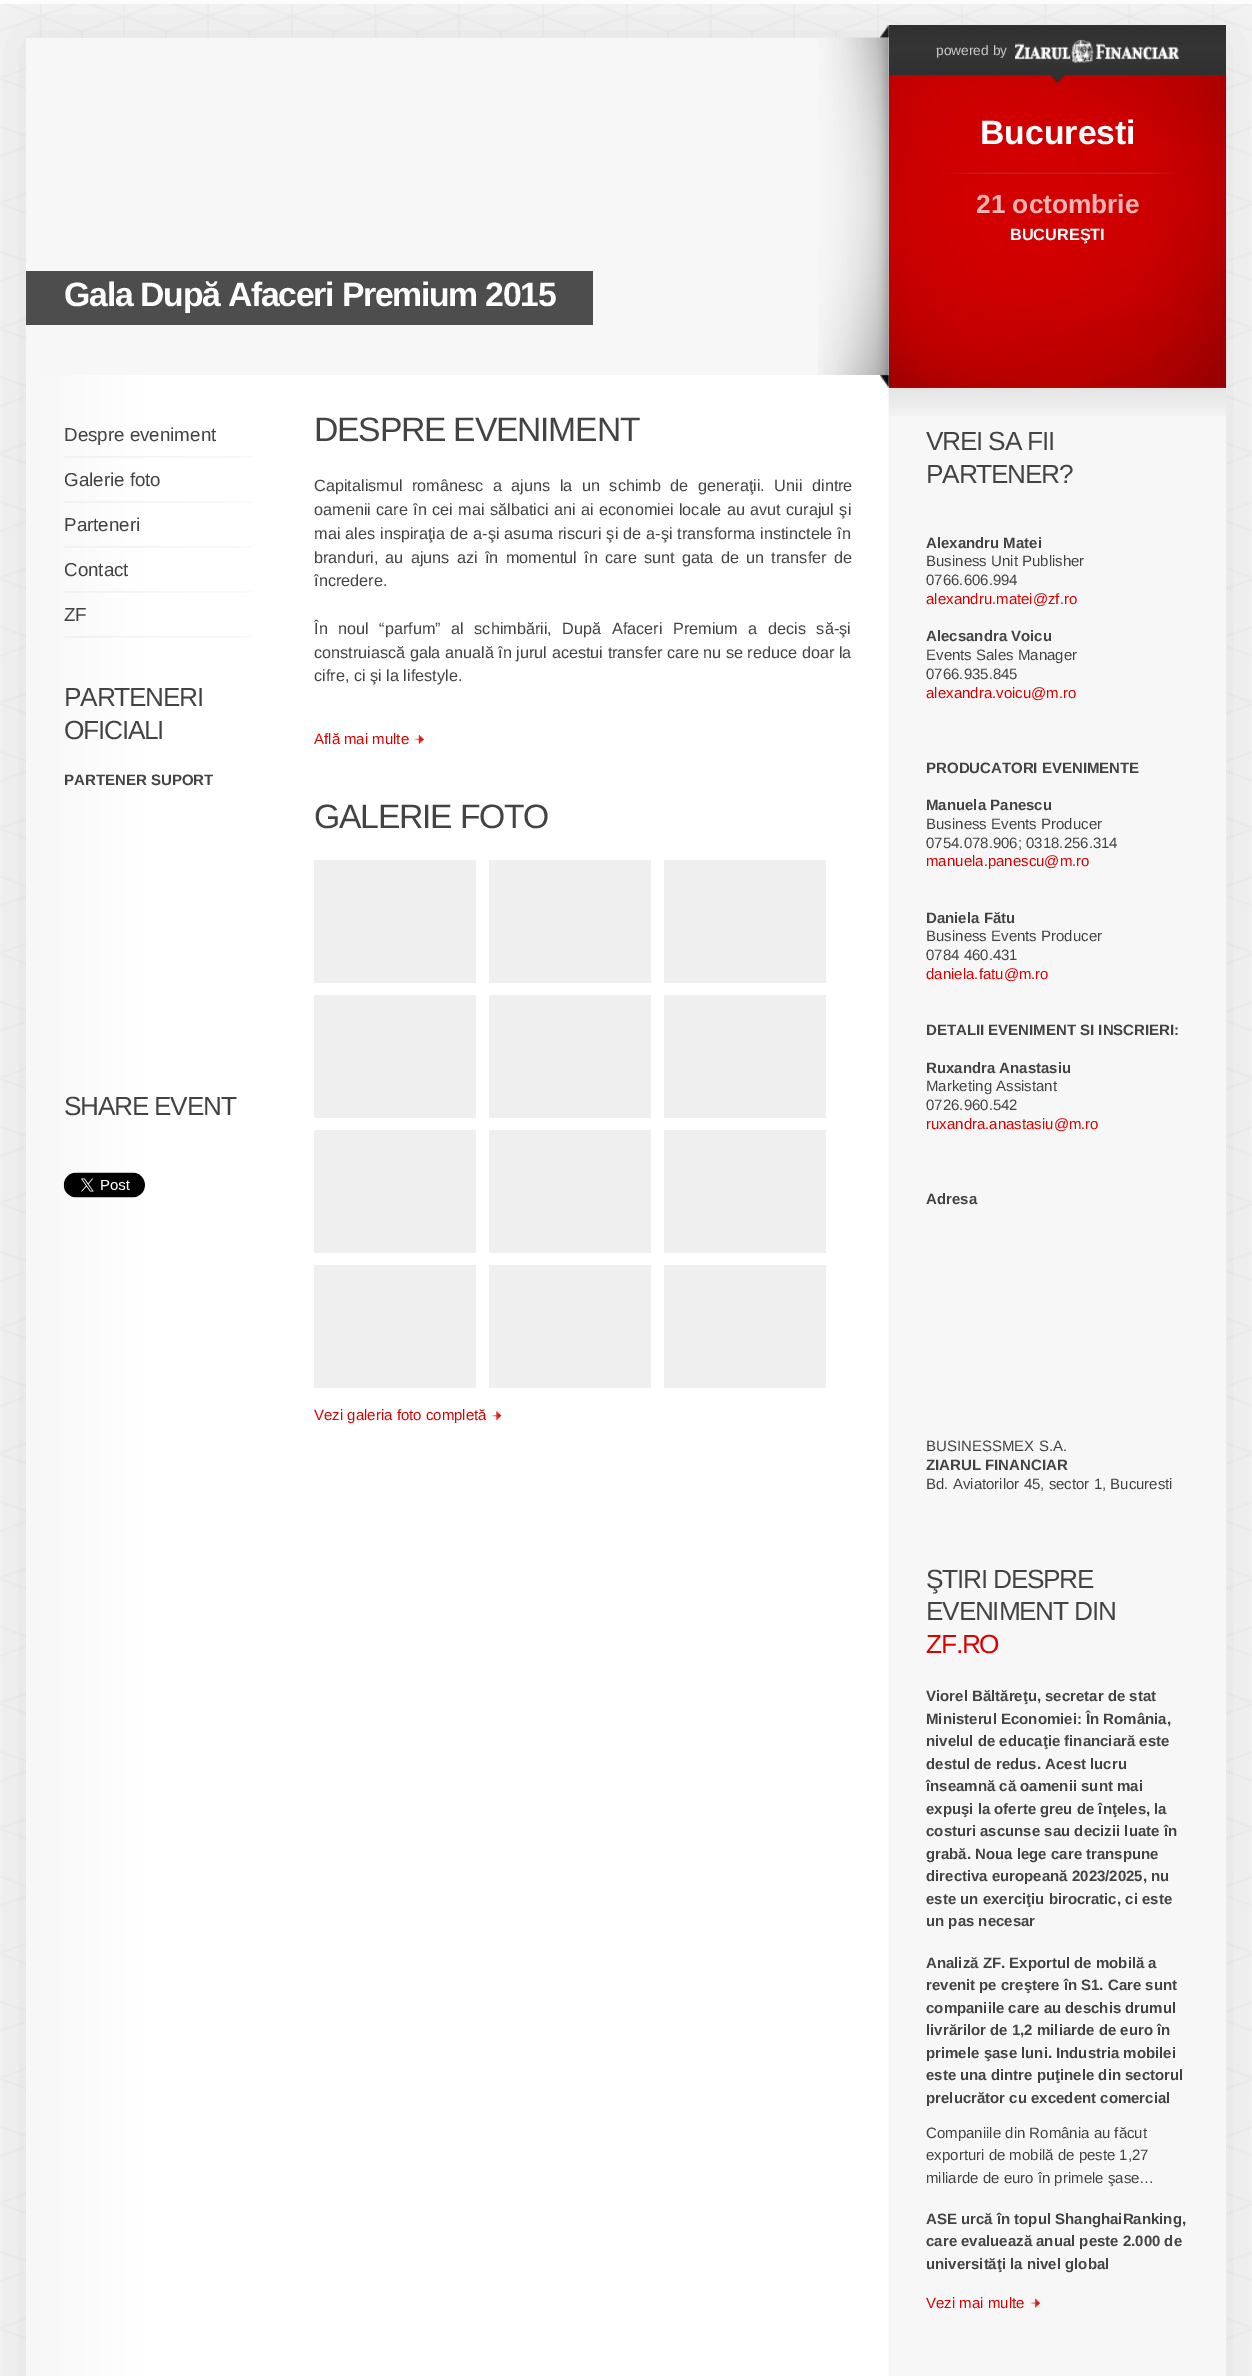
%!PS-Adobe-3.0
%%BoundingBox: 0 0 1252 2376
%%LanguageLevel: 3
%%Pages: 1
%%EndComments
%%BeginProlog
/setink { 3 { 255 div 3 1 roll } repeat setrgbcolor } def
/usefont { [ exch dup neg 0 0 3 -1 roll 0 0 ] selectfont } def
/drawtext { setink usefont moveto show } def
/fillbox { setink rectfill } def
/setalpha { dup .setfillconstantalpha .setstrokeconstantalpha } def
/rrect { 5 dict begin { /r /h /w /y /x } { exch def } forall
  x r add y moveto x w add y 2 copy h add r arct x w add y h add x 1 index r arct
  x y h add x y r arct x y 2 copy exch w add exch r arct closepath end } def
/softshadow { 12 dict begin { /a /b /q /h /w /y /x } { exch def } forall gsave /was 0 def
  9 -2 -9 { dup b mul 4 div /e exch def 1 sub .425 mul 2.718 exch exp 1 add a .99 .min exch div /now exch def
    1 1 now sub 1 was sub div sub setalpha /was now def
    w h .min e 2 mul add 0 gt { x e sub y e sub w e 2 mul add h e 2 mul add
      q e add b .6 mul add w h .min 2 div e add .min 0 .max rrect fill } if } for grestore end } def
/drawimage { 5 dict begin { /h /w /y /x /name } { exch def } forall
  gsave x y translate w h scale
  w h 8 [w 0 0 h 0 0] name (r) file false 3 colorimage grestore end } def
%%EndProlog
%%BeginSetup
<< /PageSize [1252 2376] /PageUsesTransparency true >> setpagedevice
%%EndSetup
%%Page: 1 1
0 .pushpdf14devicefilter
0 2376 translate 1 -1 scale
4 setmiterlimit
0 0 1252 2376 255 255 255 fillbox
(assets/img1.rgb) 0 4 1252 2372 drawimage
0 0 0 setink
26 38 1200 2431 0 31 0.07 softshadow
26 38 863 2338 247 247 247 fillbox
(assets/img8.rgb) 26 375 1200 2001 drawimage
(assets/img13.rgb) 888 387 338 29 drawimage
(assets/img2.rgb) 880 25 9 363 drawimage
gsave 889 25 moveto 1226 25 lineto 1226 75 lineto 889 75 lineto closepath clip newpath
<< /ShadingType 2 /ColorSpace /DeviceRGB /Coords [1058 25 1058 75] /Extend [true true] /Function << /FunctionType 3 /Domain [0 1] /Functions [<< /FunctionType 2 /Domain [0 1] /C0 [0.188 0.188 0.188] /C1 [0.208 0.208 0.208] /N 1 >> << /FunctionType 2 /Domain [0 1] /C0 [0.208 0.208 0.208] /C1 [0.188 0.188 0.188] /N 1 >>] /Bounds [0.45] /Encode [0 1 0 1] >> >> shfill grestore
(powered by) 936 55 /LiberationSans-Regular 13.75 201 201 201 drawtext
(assets/img3.rgb) 1015 39 164 24 drawimage
889 75 337 313 219 0 0 fillbox
(assets/img5.rgb) 888 75 339 313 drawimage
(assets/img4.rgb) 1050 75 15 8 drawimage
(assets/img6.rgb) 946 171 228 3 drawimage
(Bucuresti) 980 144 /LiberationSans-Bold 33.75 255 255 255 drawtext
(21 octombrie) 976 213 /LiberationSans-Bold 26.25 241 179 179 drawtext
(BUCUREŞTI) 1010 240 /LiberationSans-Bold 16.25 255 255 255 drawtext
26 271 567 54 77 77 77 fillbox
/LiberationSans-Bold 33.75 usefont
255 255 255 setink
64 306 moveto -1.25 0 (Gala După Afaceri Premium 2015) ashow
(assets/img7.rgb) 818 37 71 338 drawimage
(assets/img9.rgb) 64 456 189 2 drawimage
(Despre eveniment) 64 441 /LiberationSans-Regular 18.75 67 67 67 drawtext
(assets/img9.rgb) 64 501 189 2 drawimage
(Galerie foto) 64 486 /LiberationSans-Regular 18.75 67 67 67 drawtext
(assets/img9.rgb) 64 546 189 2 drawimage
(Parteneri) 64 531 /LiberationSans-Regular 18.75 67 67 67 drawtext
(assets/img9.rgb) 64 591 189 2 drawimage
(Contact) 64 576 /LiberationSans-Regular 18.75 67 67 67 drawtext
(assets/img9.rgb) 64 636 189 2 drawimage
(ZF) 64 621 /LiberationSans-Regular 18.75 67 67 67 drawtext
/LiberationSans-Regular 26.25 usefont
64 706 moveto -1.25 0 (PARTENERI) ashow
64 739 moveto -1.25 0 (OFICIALI) ashow
(PARTENER SUPORT) 64 785 /LiberationSans-Bold 15 67 67 67 drawtext
/LiberationSans-Regular 26.25 usefont
64 1115 moveto -1.25 0 (SHARE EVENT) ashow
(assets/img10.rgb) 63 1172 82 26 drawimage
/LiberationSans-Regular 33.75 usefont
314 441 moveto -1.25 0 (DESPRE EVENIMENT) ashow
/LiberationSans-Regular 16.25 usefont
314 491 moveto 5 0 32 (Capitalismul românesc a ajuns la un schimb de generaţii. Unii dintre) widthshow
314 515 moveto 0.9 0 32 (oamenii care în cei mai sălbatici ani ai economiei locale au avut curajul şi) widthshow
314 539 moveto 0.5 0 32 (mai ales inspiraţia de a-şi asuma riscuri şi de a-şi transforma instinctele în) widthshow
314 563 moveto 2.75 0 32 (branduri, au ajuns azi în momentul în care sunt gata de un transfer de) widthshow
(încredere.) 314 586 /LiberationSans-Regular 16.25 67 67 67 drawtext
314 634 moveto 6 0 32 (În noul “parfum” al schimbării, După Afaceri Premium a decis să-şi) widthshow
(construiască gala anuală în jurul acestui transfer care nu se reduce doar la) 314 658 /LiberationSans-Regular 16.25 67 67 67 drawtext
(cifre, ci şi la lifestyle.) 314 681 /LiberationSans-Regular 16.25 67 67 67 drawtext
(assets/img11.rgb) 413 734 11 10 drawimage
(Află mai multe) 314 744 /LiberationSans-Regular 15 219 0 0 drawtext
/LiberationSans-Regular 33.75 usefont
67 67 67 setink
314 828 moveto -1.25 0 (GALERIE FOTO) ashow
314 860 162 123 239 239 239 fillbox
489 860 162 123 239 239 239 fillbox
664 860 162 123 239 239 239 fillbox
314 995 162 123 239 239 239 fillbox
489 995 162 123 239 239 239 fillbox
664 995 162 123 239 239 239 fillbox
314 1130 162 123 239 239 239 fillbox
489 1130 162 123 239 239 239 fillbox
664 1130 162 123 239 239 239 fillbox
314 1265 162 123 239 239 239 fillbox
489 1265 162 123 239 239 239 fillbox
664 1265 162 123 239 239 239 fillbox
(assets/img12.rgb) 491 1411 11 10 drawimage
(Vezi galeria foto completă) 314 1420 /LiberationSans-Regular 15 219 0 0 drawtext
/LiberationSans-Regular 26.25 usefont
67 67 67 setink
926 450 moveto -1.25 0 (VREI SA FII) ashow
926 483 moveto -1.25 0 (PARTENER?) ashow
(Alexandru Matei) 926 548 /LiberationSans-Bold 15 67 67 67 drawtext
(Business Unit Publisher) 926 566 /LiberationSans-Regular 15 67 67 67 drawtext
(0766.606.994) 926 585 /LiberationSans-Regular 15 67 67 67 drawtext
(alexandru.matei@zf.ro) 926 604 /LiberationSans-Regular 15 219 0 0 drawtext
(Alecsandra Voicu) 926 641 /LiberationSans-Bold 15 67 67 67 drawtext
(Events Sales Manager) 926 660 /LiberationSans-Regular 15 67 67 67 drawtext
(0766.935.845) 926 679 /LiberationSans-Regular 15 67 67 67 drawtext
(alexandra.voicu@m.ro) 926 698 /LiberationSans-Regular 15 219 0 0 drawtext
(PRODUCATORI EVENIMENTE) 926 773 /LiberationSans-Bold 15 67 67 67 drawtext
(Manuela Panescu) 926 810 /LiberationSans-Bold 15 67 67 67 drawtext
(Business Events Producer) 926 829 /LiberationSans-Regular 15 67 67 67 drawtext
(0754.078.906; 0318.256.314) 926 848 /LiberationSans-Regular 15 67 67 67 drawtext
(manuela.panescu@m.ro) 926 866 /LiberationSans-Regular 15 219 0 0 drawtext
(Daniela Fătu) 926 923 /LiberationSans-Bold 15 67 67 67 drawtext
(Business Events Producer) 926 941 /LiberationSans-Regular 15 67 67 67 drawtext
(0784 460.431) 926 960 /LiberationSans-Regular 15 67 67 67 drawtext
(daniela.fatu@m.ro) 926 979 /LiberationSans-Regular 15 219 0 0 drawtext
(DETALII EVENIMENT SI INSCRIERI:) 926 1035 /LiberationSans-Bold 15 67 67 67 drawtext
(Ruxandra Anastasiu) 926 1073 /LiberationSans-Bold 15 67 67 67 drawtext
(Marketing Assistant) 926 1091 /LiberationSans-Regular 15 67 67 67 drawtext
(0726.960.542) 926 1110 /LiberationSans-Regular 15 67 67 67 drawtext
(ruxandra.anastasiu@m.ro) 926 1129 /LiberationSans-Regular 15 219 0 0 drawtext
(Adresa) 926 1204 /LiberationSans-Bold 15 67 67 67 drawtext
(BUSINESSMEX S.A.) 926 1451 /LiberationSans-Regular 15 67 67 67 drawtext
(ZIARUL FINANCIAR) 926 1470 /LiberationSans-Bold 15 67 67 67 drawtext
(Bd. Aviatorilor 45, sector 1, Bucuresti) 926 1489 /LiberationSans-Regular 15 67 67 67 drawtext
/LiberationSans-Regular 26.25 usefont
926 1588 moveto -1.25 0 (ŞTIRI DESPRE) ashow
926 1620 moveto -1.25 0 (EVENIMENT DIN) ashow
219 0 0 setink
926 1653 moveto -1.25 0 (ZF.RO) ashow
(Viorel Băltăreţu, secretar de stat) 926 1701 /LiberationSans-Bold 15 67 67 67 drawtext
(Ministerul Economiei: În România,) 926 1724 /LiberationSans-Bold 15 67 67 67 drawtext
(nivelul de educaţie financiară este) 926 1746 /LiberationSans-Bold 15 67 67 67 drawtext
(destul de redus. Acest lucru) 926 1769 /LiberationSans-Bold 15 67 67 67 drawtext
(înseamnă că oamenii sunt mai) 926 1791 /LiberationSans-Bold 15 67 67 67 drawtext
(expuşi la oferte greu de înţeles, la) 926 1814 /LiberationSans-Bold 15 67 67 67 drawtext
(costuri ascunse sau decizii luate în) 926 1836 /LiberationSans-Bold 15 67 67 67 drawtext
(grabă. Noua lege care transpune) 926 1859 /LiberationSans-Bold 15 67 67 67 drawtext
(directiva europeană 2023/2025, nu) 926 1881 /LiberationSans-Bold 15 67 67 67 drawtext
(este un exerciţiu birocratic, ci este) 926 1904 /LiberationSans-Bold 15 67 67 67 drawtext
(un pas necesar) 926 1926 /LiberationSans-Bold 15 67 67 67 drawtext
(Analiză ZF. Exportul de mobilă a) 926 1968 /LiberationSans-Bold 15 67 67 67 drawtext
(revenit pe creştere în S1. Care sunt) 926 1990 /LiberationSans-Bold 15 67 67 67 drawtext
(companiile care au deschis drumul) 926 2013 /LiberationSans-Bold 15 67 67 67 drawtext
(livrărilor de 1,2 miliarde de euro în) 926 2035 /LiberationSans-Bold 15 67 67 67 drawtext
(primele şase luni. Industria mobilei) 926 2058 /LiberationSans-Bold 15 67 67 67 drawtext
(este una dintre puţinele din sectorul) 926 2080 /LiberationSans-Bold 15 67 67 67 drawtext
(prelucrător cu excedent comercial) 926 2103 /LiberationSans-Bold 15 67 67 67 drawtext
(Companiile din România au făcut) 926 2138 /LiberationSans-Regular 15 67 67 67 drawtext
(exporturi de mobilă de peste 1,27) 926 2160 /LiberationSans-Regular 15 67 67 67 drawtext
(miliarde de euro în primele şase…) 926 2183 /LiberationSans-Regular 15 67 67 67 drawtext
(ASE urcă în topul ShanghaiRanking,) 926 2224 /LiberationSans-Bold 15 67 67 67 drawtext
(care evaluează anual peste 2.000 de) 926 2246 /LiberationSans-Bold 15 67 67 67 drawtext
(universităţi la nivel global) 926 2269 /LiberationSans-Bold 15 67 67 67 drawtext
(assets/img14.rgb) 1030 2298 10 10 drawimage
(Vezi mai multe) 926 2308 /LiberationSans-Regular 15 219 0 0 drawtext
.poppdf14devicefilter showpage
%%EOF
